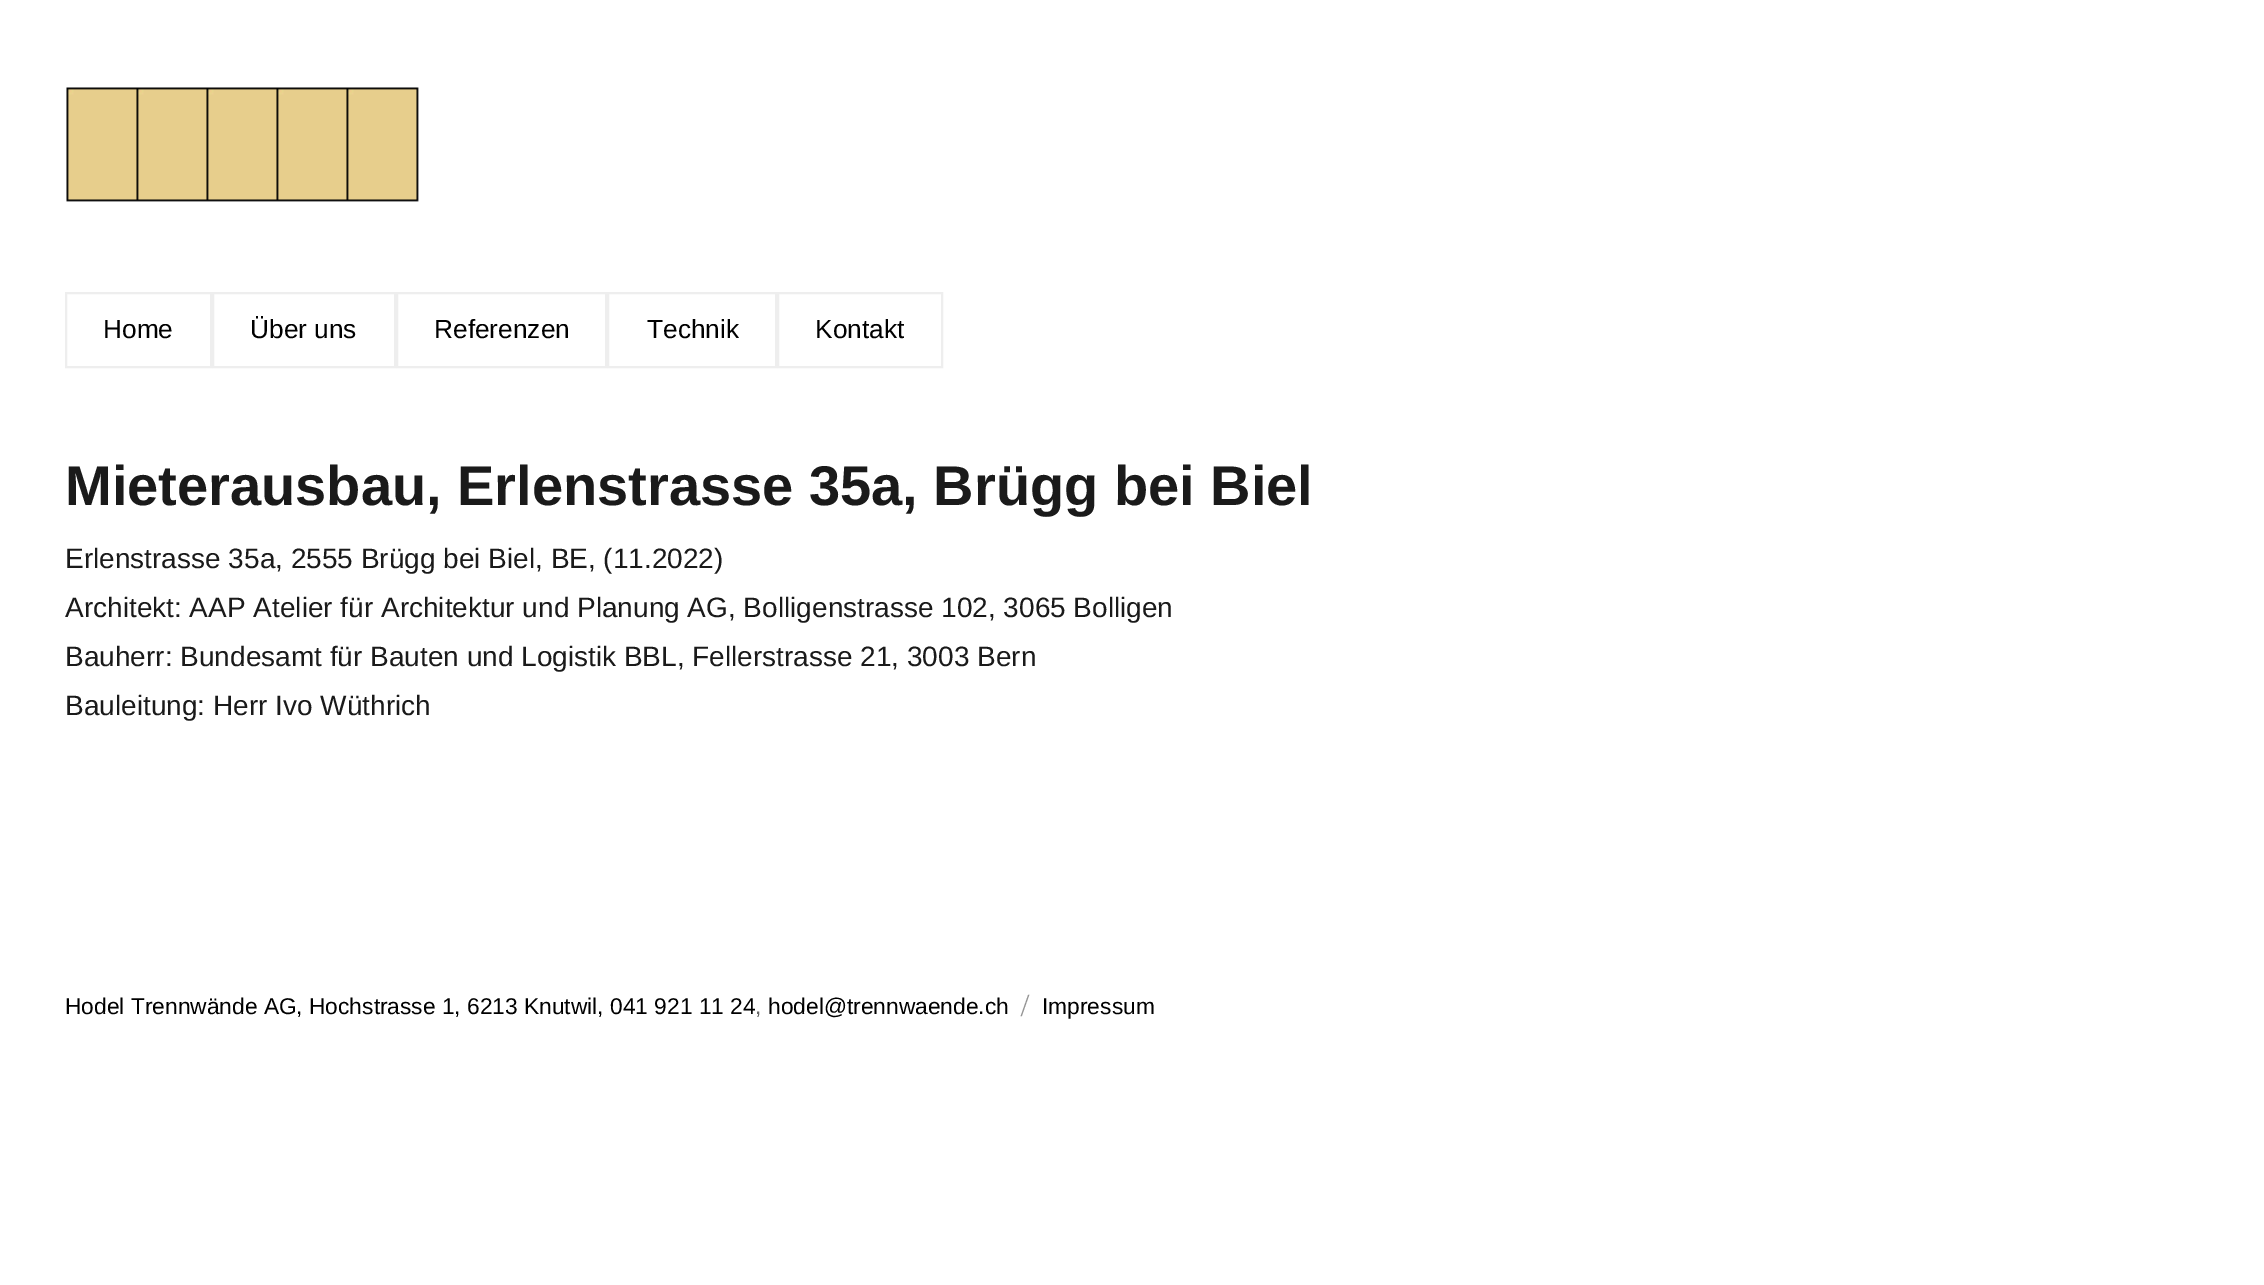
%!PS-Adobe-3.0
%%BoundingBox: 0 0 2264 1285
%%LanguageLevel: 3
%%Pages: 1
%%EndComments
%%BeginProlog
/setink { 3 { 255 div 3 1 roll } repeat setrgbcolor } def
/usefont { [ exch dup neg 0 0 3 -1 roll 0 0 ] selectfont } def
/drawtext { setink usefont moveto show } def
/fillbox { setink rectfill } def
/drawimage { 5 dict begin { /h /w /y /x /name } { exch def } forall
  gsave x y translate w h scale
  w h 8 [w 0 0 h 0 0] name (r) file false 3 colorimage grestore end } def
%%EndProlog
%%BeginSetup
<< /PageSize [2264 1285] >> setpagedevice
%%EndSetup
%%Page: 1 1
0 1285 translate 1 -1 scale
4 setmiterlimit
0 0 2264 1285 255 255 255 fillbox
(assets/img1.rgb) 66 87 353 115 drawimage
238 238 238 setink
2 setlinewidth
66 293 145 74 rectstroke
(Home) 103 338 /LiberationSans-Regular 26.25 0 0 0 drawtext
238 238 238 setink
213 293 182 74 rectstroke
(Über uns) 250 338 /LiberationSans-Regular 26.25 0 0 0 drawtext
238 238 238 setink
397 293 209 74 rectstroke
(Referenzen) 434 338 /LiberationSans-Regular 26.25 0 0 0 drawtext
238 238 238 setink
608 293 168 74 rectstroke
(Technik) 647 338 /LiberationSans-Regular 26.25 0 0 0 drawtext
238 238 238 setink
778 293 164 74 rectstroke
(Kontakt) 815 338 /LiberationSans-Regular 26.25 0 0 0 drawtext
(Mieterausbau, Erlenstrasse 35a, Brügg bei Biel) 65 505 /LiberationSans-Bold 56 26 26 26 drawtext
(Erlenstrasse 35a, 2555 Brügg bei Biel, BE, \(11.2022\)) 65 568 /LiberationSans-Regular 28 26 26 26 drawtext
(Architekt: AAP Atelier für Architektur und Planung AG, Bolligenstrasse 102, 3065 Bolligen) 65 617 /LiberationSans-Regular 28 26 26 26 drawtext
(Bauherr: Bundesamt für Bauten und Logistik BBL, Fellerstrasse 21, 3003 Bern) 65 666 /LiberationSans-Regular 28 26 26 26 drawtext
(Bauleitung: Herr Ivo Wüthrich) 65 715 /LiberationSans-Regular 28 26 26 26 drawtext
(Hodel Trennwände AG, Hochstrasse 1, 6213 Knutwil, 041 921 11 24) 65 1014 /LiberationSans-Regular 22.75 0 0 0 drawtext
(,) 755 1014 /LiberationSans-Regular 22.75 104 104 104 drawtext
(hodel@trennwaende.ch) 768 1014 /LiberationSans-Regular 22.75 0 0 0 drawtext
(/) 1021 1014 /Montserrat-Regular 22.75 149 149 149 drawtext
(Impressum) 1042 1014 /LiberationSans-Regular 22.75 0 0 0 drawtext
showpage
%%EOF
